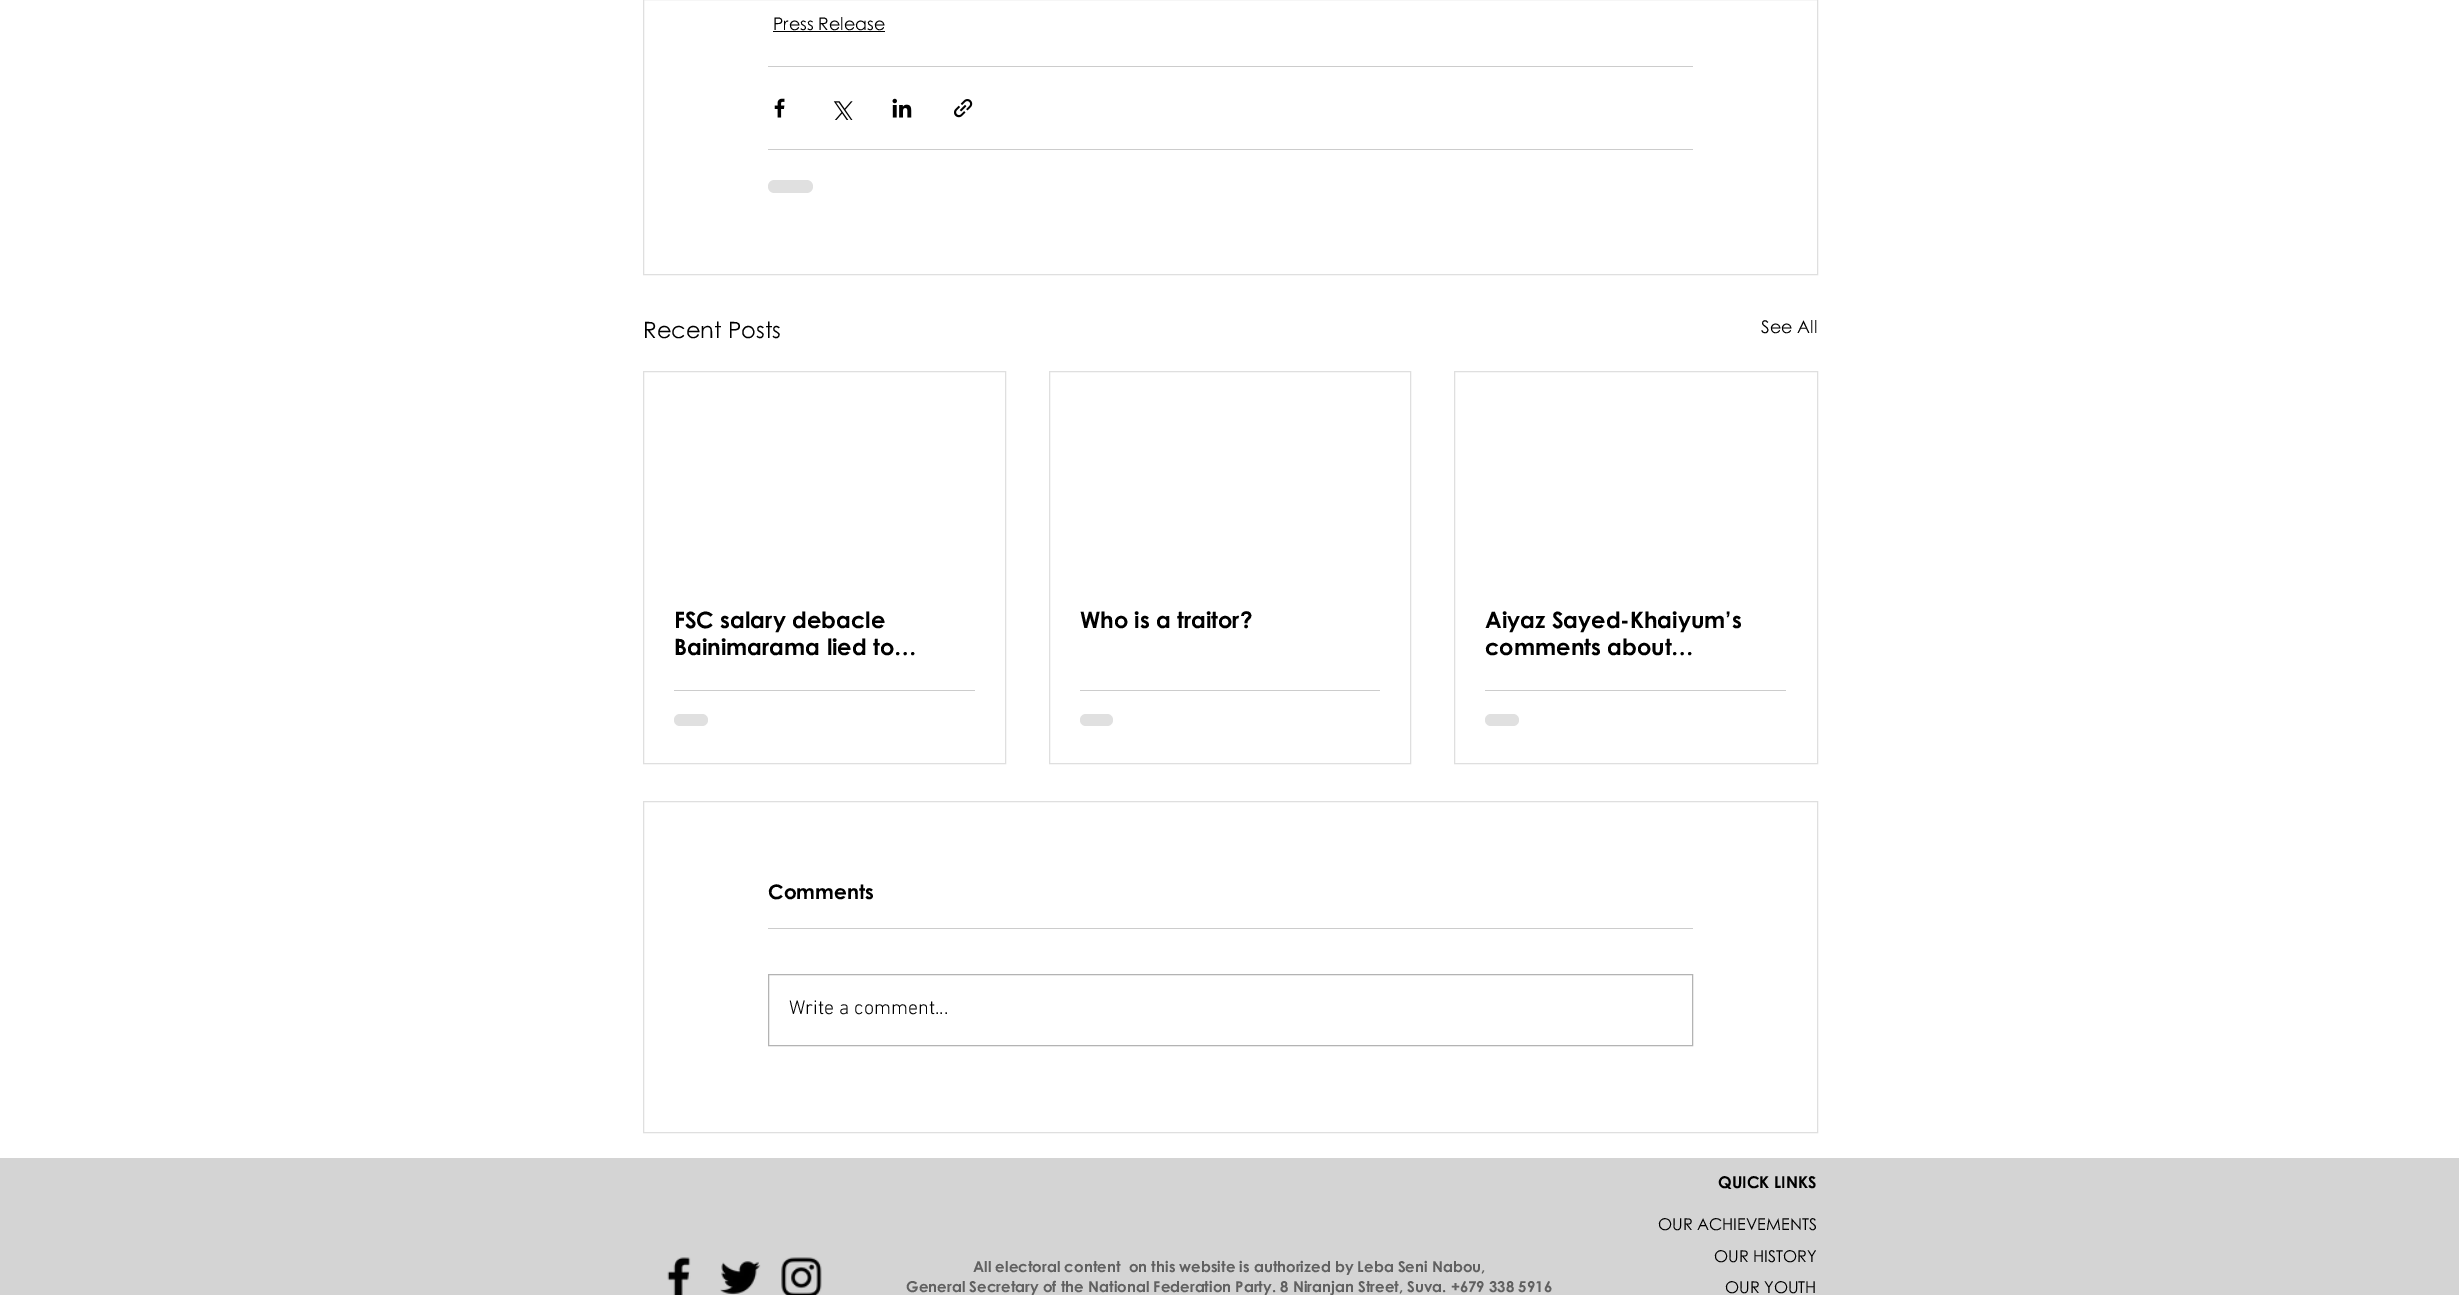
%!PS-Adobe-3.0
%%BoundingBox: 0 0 2459 1295
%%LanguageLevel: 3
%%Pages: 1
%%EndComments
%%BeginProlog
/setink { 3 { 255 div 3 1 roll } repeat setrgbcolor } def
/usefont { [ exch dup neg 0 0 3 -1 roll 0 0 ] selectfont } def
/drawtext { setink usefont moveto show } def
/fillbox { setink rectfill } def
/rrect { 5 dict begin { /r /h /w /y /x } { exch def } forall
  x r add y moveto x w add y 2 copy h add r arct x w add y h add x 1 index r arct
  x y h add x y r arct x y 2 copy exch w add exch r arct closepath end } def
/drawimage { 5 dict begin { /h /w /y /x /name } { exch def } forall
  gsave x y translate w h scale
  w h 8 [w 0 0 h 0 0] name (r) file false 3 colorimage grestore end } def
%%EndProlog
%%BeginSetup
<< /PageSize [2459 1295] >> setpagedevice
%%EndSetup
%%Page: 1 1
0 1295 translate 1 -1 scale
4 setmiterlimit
0 0 2459 1295 255 255 255 fillbox
223 223 223 setink
643.5 -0.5 1174 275 rectstroke
(Press Release) 773 30 /CenturyGothic-Regular 17.5 0 0 0 drawtext
773 31 112 1 0 0 0 fillbox
768 66 925 1 204 204 204 fillbox
(assets/img1.rgb) 774 98 11 20 drawimage
(assets/img2.rgb) 833 101 20 19 drawimage
(assets/img3.rgb) 892 98 20 20 drawimage
(assets/img4.rgb) 954 99 19 19 drawimage
768 149 925 1 204 204 204 fillbox
224 224 224 setink
768 180 45 13 6.5 rrect fill
(Recent Posts) 643 338 /CenturyGothic-Regular 22.5 0 0 0 drawtext
(See All) 1761 333 /CenturyGothic-Regular 17.5 0 0 0 drawtext
223 223 223 setink
643.5 371.5 362 392 rectstroke
(FSC salary debacle) 674 628 /CenturyGothic-Bold 22.5 0 0 0 drawtext
(Bainimarama lied to…) 674 655 /CenturyGothic-Bold 22.5 0 0 0 drawtext
674 690 301 1 204 204 204 fillbox
224 224 224 setink
674 714 34 12 6 rrect fill
223 223 223 setink
1049.5 371.5 361 392 rectstroke
(Who is a traitor?) 1080 628 /CenturyGothic-Bold 22.5 0 0 0 drawtext
1080 690 300 1 204 204 204 fillbox
224 224 224 setink
1080 714 33 12 6 rrect fill
223 223 223 setink
1454.5 371.5 363 392 rectstroke
(Aiyaz Sayed-Khaiyum’s) 1485 628 /CenturyGothic-Bold 22.5 0 0 0 drawtext
(comments about…) 1485 655 /CenturyGothic-Bold 22.5 0 0 0 drawtext
1485 690 301 1 204 204 204 fillbox
224 224 224 setink
1485 714 34 12 6 rrect fill
223 223 223 setink
643.5 801.5 1174 331 rectstroke
(Comments) 768 899 /CenturyGothic-Bold 20 0 0 0 drawtext
768 928 925 1 204 204 204 fillbox
179 179 179 setink
768.5 974.5 924 71 rectstroke
(Write a comment...) 789 1014 /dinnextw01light-Light 20 0 0 0 drawtext
0 1158 2459 137 212 212 212 fillbox
(assets/img5.rgb) 667 1257 24 38 drawimage
(assets/img6.rgb) 720 1261 41 34 drawimage
(assets/img7.rgb) 781 1257 41 38 drawimage
(All electoral content  on this website is authorized by Leba Seni Nabou,) 973 1272 /CenturyGothic-Bold 15 96 96 96 drawtext
(General Secretary of the National Federation Party. 8 Niranjan Street, Suva. +679 338 5916) 906 1292 /CenturyGothic-Bold 15 96 96 96 drawtext
(QUICK LINKS) 1718 1188 /CenturyGothic-Bold 16.25 0 0 0 drawtext
(OUR ACHIEVEMENTS) 1658 1230 /CenturyGothic-Regular 16.25 0 0 0 drawtext
(OUR HISTORY) 1714 1262 /CenturyGothic-Regular 16.25 0 0 0 drawtext
(OUR YOUTH) 1725 1293 /CenturyGothic-Regular 16.25 0 0 0 drawtext
showpage
%%EOF
